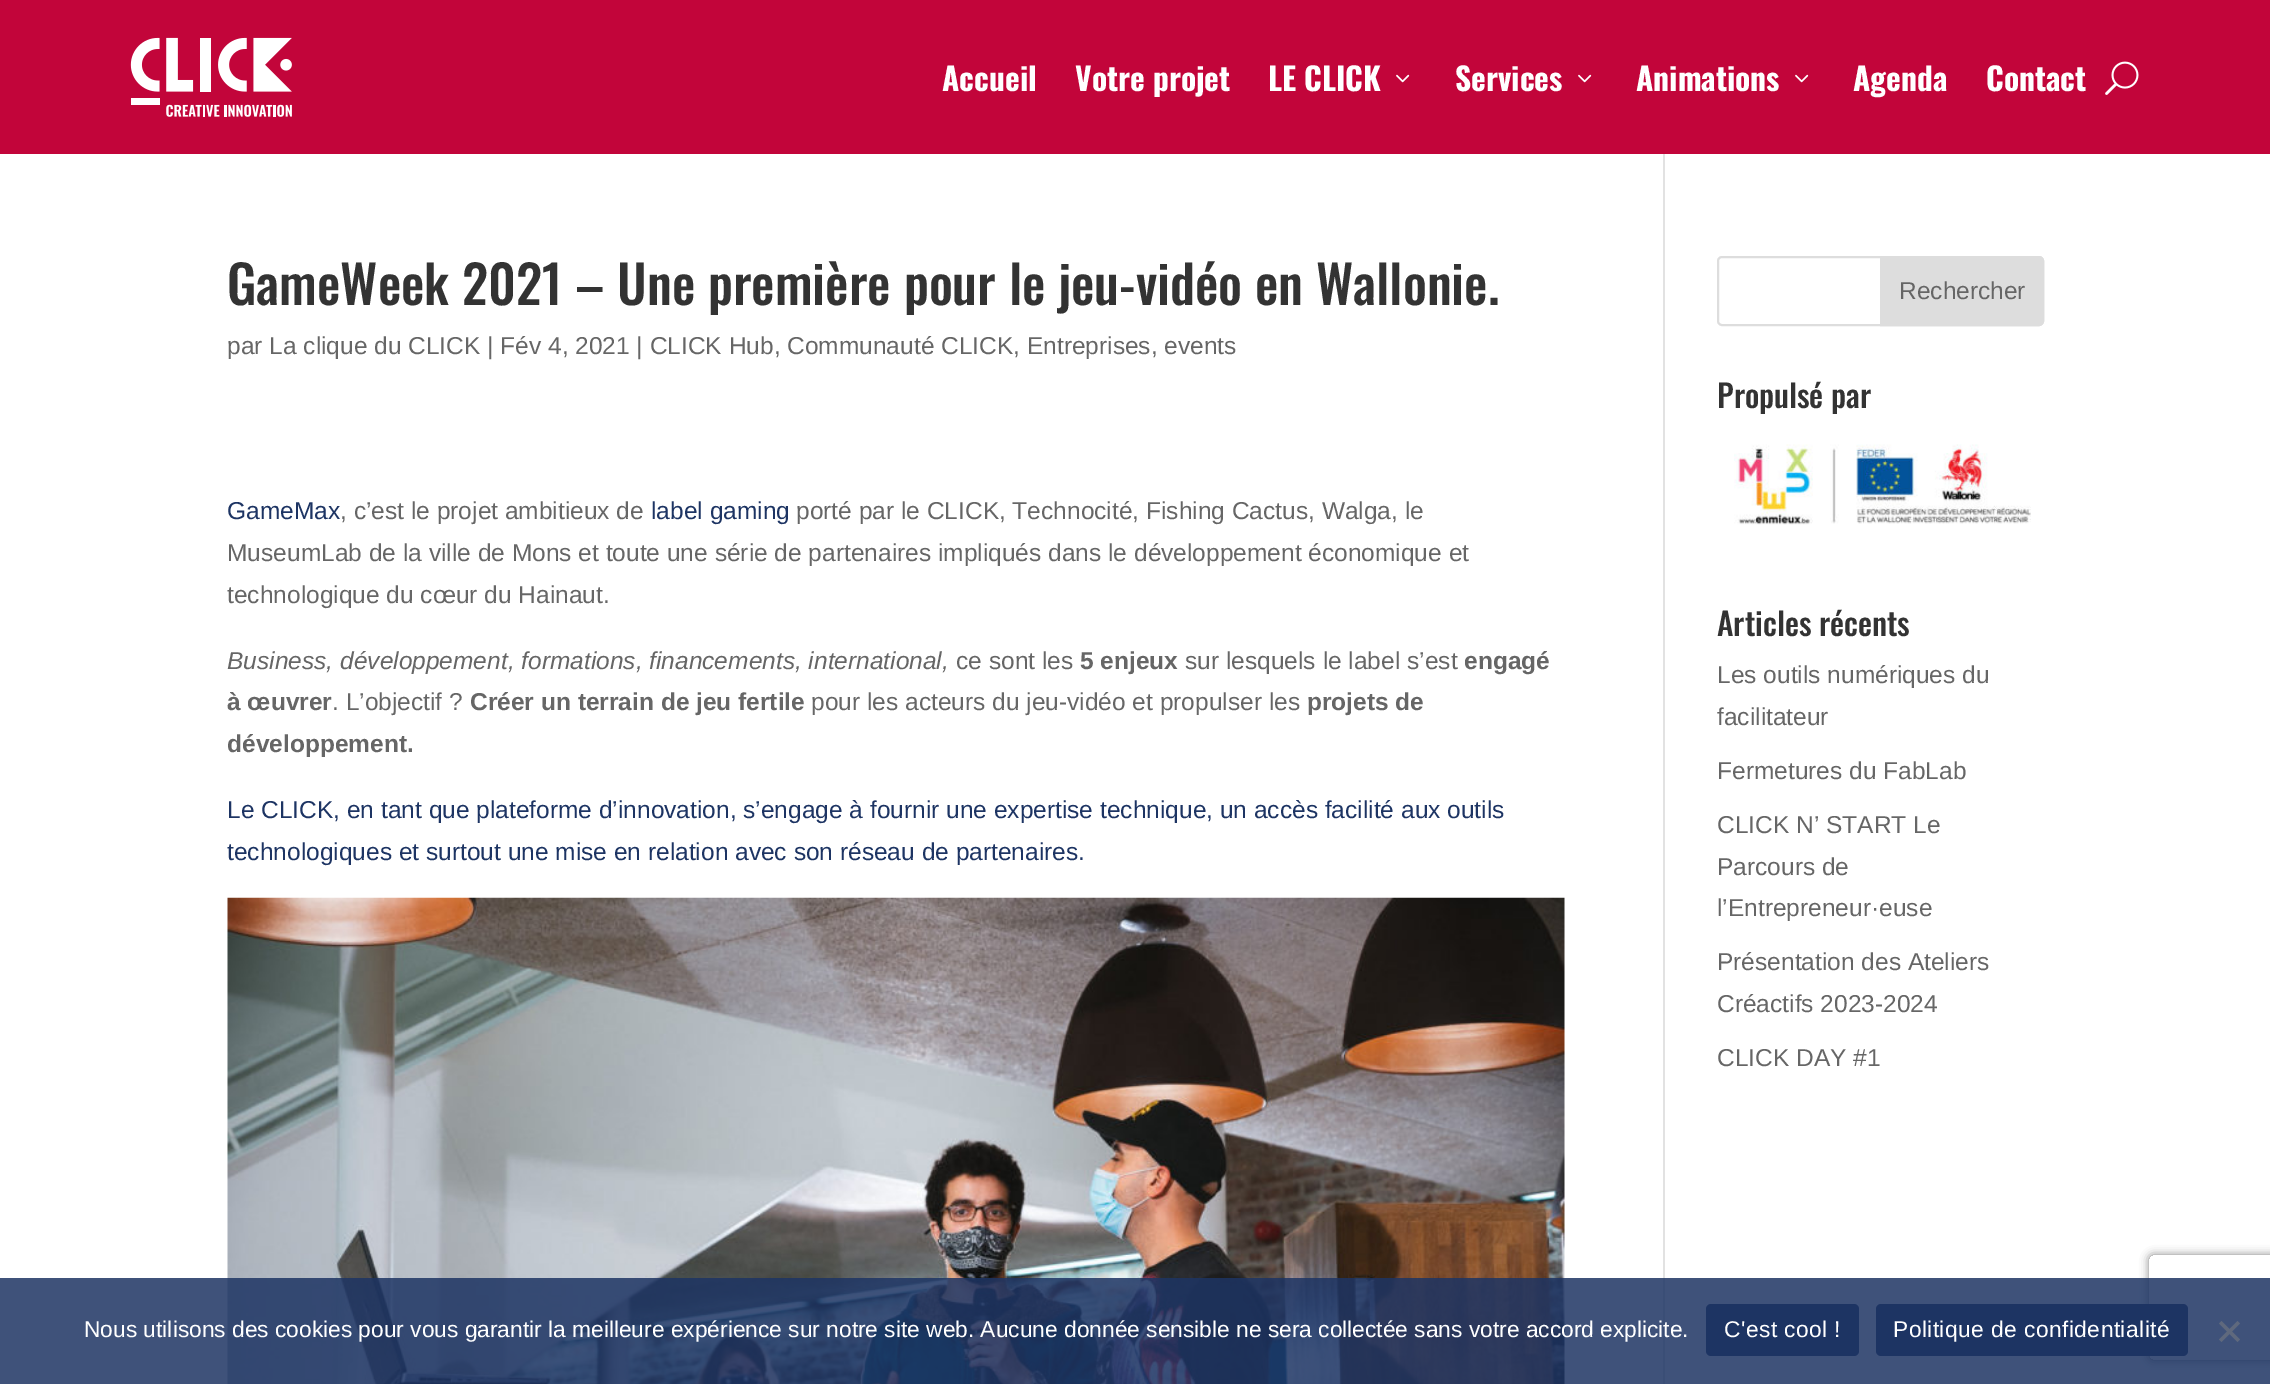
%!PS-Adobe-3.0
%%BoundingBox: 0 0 2270 1384
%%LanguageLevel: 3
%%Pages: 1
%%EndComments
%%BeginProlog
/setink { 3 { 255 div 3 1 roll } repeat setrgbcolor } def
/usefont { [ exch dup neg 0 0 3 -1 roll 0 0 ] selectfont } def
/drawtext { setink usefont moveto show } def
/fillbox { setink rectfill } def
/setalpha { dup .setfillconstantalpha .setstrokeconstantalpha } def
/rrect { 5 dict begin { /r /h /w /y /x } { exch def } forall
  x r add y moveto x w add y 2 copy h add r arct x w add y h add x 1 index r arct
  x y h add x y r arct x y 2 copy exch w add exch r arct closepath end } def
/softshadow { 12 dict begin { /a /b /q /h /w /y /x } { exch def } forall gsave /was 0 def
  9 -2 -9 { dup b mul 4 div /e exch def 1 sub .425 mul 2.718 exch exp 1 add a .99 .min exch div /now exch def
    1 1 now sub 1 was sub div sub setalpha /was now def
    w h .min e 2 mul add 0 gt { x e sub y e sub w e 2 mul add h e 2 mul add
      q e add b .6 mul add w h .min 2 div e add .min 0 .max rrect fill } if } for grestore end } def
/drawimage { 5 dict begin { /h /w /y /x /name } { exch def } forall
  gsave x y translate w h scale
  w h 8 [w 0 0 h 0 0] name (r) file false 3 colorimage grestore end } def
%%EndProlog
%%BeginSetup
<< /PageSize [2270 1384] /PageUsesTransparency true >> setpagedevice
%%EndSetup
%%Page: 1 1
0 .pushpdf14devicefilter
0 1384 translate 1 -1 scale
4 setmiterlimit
0 0 2270 1384 255 255 255 fillbox
0 0 2270 154 194 5 58 fillbox
(assets/img1.rgb) 130 37 162 80 drawimage
(Accueil) 942 91 /Oswald-Bold 31.5 255 255 255 drawtext
(Votre projet) 1075 91 /Oswald-Bold 31.5 255 255 255 drawtext
(LE CLICK) 1268 91 /Oswald-Bold 31.5 255 255 255 drawtext
(assets/img2.rgb) 1396 74 14 9 drawimage
(Services) 1455 91 /Oswald-Bold 31.5 255 255 255 drawtext
(assets/img2.rgb) 1578 74 14 9 drawimage
(Animations) 1636 91 /Oswald-Bold 31.5 255 255 255 drawtext
(assets/img2.rgb) 1795 74 14 9 drawimage
(Agenda) 1853 91 /Oswald-Bold 31.5 255 255 255 drawtext
(Contact) 1986 91 /Oswald-Bold 31.5 255 255 255 drawtext
(assets/img3.rgb) 2105 61 34 34 drawimage
1663 154 2 1230 226 226 226 fillbox
(GameWeek 2021 – Une première pour le jeu-vidéo en Wallonie.) 227 305 /Oswald-Medium 52.5 51 51 51 drawtext
(par La clique du CLICK | Fév 4, 2021 | CLICK Hub, Communauté CLICK, Entreprises, events) 227 354 /LiberationSans-Regular 24.5 102 102 102 drawtext
(GameMax) 227 519 /LiberationSans-Regular 24.5 29 52 99 drawtext
(, c’est le projet ambitieux de) 340 519 /LiberationSans-Regular 24.5 102 102 102 drawtext
(label gaming) 651 519 /LiberationSans-Regular 24.5 29 52 99 drawtext
(porté par le CLICK, Technocité, Fishing Cactus, Walga, le) 796 519 /LiberationSans-Regular 24.5 102 102 102 drawtext
(MuseumLab de la ville de Mons et toute une série de partenaires impliqués dans le développement économique et) 227 561 /LiberationSans-Regular 24.5 102 102 102 drawtext
(technologique du cœur du Hainaut.) 227 603 /LiberationSans-Regular 24.5 102 102 102 drawtext
(Business, développement, formations, financements, international,) 227 669 /LiberationSans-Italic 24.5 102 102 102 drawtext
(ce sont les) 956 669 /LiberationSans-Regular 24.5 102 102 102 drawtext
(5 enjeux) 1080 669 /LiberationSans-Bold 24.5 102 102 102 drawtext
(sur lesquels le label s’est) 1185 669 /LiberationSans-Regular 24.5 102 102 102 drawtext
(engagé) 1464 669 /LiberationSans-Bold 24.5 102 102 102 drawtext
(à œuvrer) 227 710 /LiberationSans-Bold 24.5 102 102 102 drawtext
(. L’objectif ?) 332 710 /LiberationSans-Regular 24.5 102 102 102 drawtext
(Créer un terrain de jeu fertile) 470 710 /LiberationSans-Bold 24.5 102 102 102 drawtext
(pour les acteurs du jeu-vidéo et propulser les) 811 710 /LiberationSans-Regular 24.5 102 102 102 drawtext
(projets de) 1307 710 /LiberationSans-Bold 24.5 102 102 102 drawtext
(développement.) 227 752 /LiberationSans-Bold 24.5 102 102 102 drawtext
(Le CLICK, en tant que plateforme d’innovation, s’engage à fournir une expertise technique, un accès facilité aux outils) 227 818 /LiberationSans-Regular 24.5 29 52 99 drawtext
(technologiques et surtout une mise en relation avec son réseau de partenaires.) 227 860 /LiberationSans-Regular 24.5 29 52 99 drawtext
(assets/img4.rgb) 227 897 1338 487 drawimage
221 221 221 setink
2 setlinewidth
1718 257 325 68 4 rrect stroke
1881 257 moveto 2039 257 lineto 2041 257 2043 259 2043 261 curveto 2043 321 lineto 2043 323 2041 325 2039 325 curveto 1881 325 lineto closepath gsave fill grestore
stroke
(Rechercher) 1899 299 /LiberationSans-Regular 24.5 102 102 102 drawtext
(Propulsé par) 1717 408 /Oswald-Medium 31.5 51 51 51 drawtext
(assets/img5.rgb) 1734 444 297 81 drawimage
(Articles récents) 1717 636 /Oswald-Medium 31.5 51 51 51 drawtext
(Les outils numériques du) 1717 683 /LiberationSans-Regular 24.5 102 102 102 drawtext
(facilitateur) 1717 725 /LiberationSans-Regular 24.5 102 102 102 drawtext
(Fermetures du FabLab) 1717 779 /LiberationSans-Regular 24.5 102 102 102 drawtext
(CLICK N’ START Le) 1717 833 /LiberationSans-Regular 24.5 102 102 102 drawtext
(Parcours de) 1717 875 /LiberationSans-Regular 24.5 102 102 102 drawtext
(l’Entrepreneur·euse) 1717 916 /LiberationSans-Regular 24.5 102 102 102 drawtext
(Présentation des Ateliers) 1717 970 /LiberationSans-Regular 24.5 102 102 102 drawtext
(Créactifs 2023-2024) 1717 1012 /LiberationSans-Regular 24.5 102 102 102 drawtext
(CLICK DAY #1) 1717 1066 /LiberationSans-Regular 24.5 102 102 102 drawtext
gsave
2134 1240 moveto 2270 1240 lineto 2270 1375 lineto 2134 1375 lineto closepath 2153 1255 moveto 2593 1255 lineto 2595 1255 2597 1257 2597 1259 curveto 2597 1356 lineto 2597 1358 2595 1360 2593 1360 curveto 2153 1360 lineto 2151 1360 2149 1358 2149 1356 curveto 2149 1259 lineto 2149 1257 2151 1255 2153 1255 curveto closepath eoclip newpath
128 128 128 setink
2149 1255 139 105 4 4.5 1 softshadow
grestore
0.85 setalpha
0 1278 2270 106 29 52 99 fillbox
1 setalpha
(Nous utilisons des cookies pour vous garantir la meilleure expérience sur notre site web. Aucune donnée sensible ne sera collectée sans votre accord explicite.) 84 1337 /LiberationSans-Regular 22.75 255 255 255 drawtext
29 52 99 setink
1706 1304 153 52 5 rrect fill
255 255 255 setink
1724 1337 moveto 0.45 0 (C'est cool !) ashow
29 52 99 setink
1876 1304 312 52 5 rrect fill
255 255 255 setink
1893 1337 moveto 0.45 0 (Politique de confidentialité) ashow
95 105 125 setink
2237.5 1321 moveto 2240 1323.5 lineto 2221.5 1342 lineto 2219 1339.5 lineto closepath fill
2219 1323.5 moveto 2221.5 1321 lineto 2240 1339.5 lineto 2237.5 1342 lineto closepath fill
.poppdf14devicefilter showpage
%%EOF
